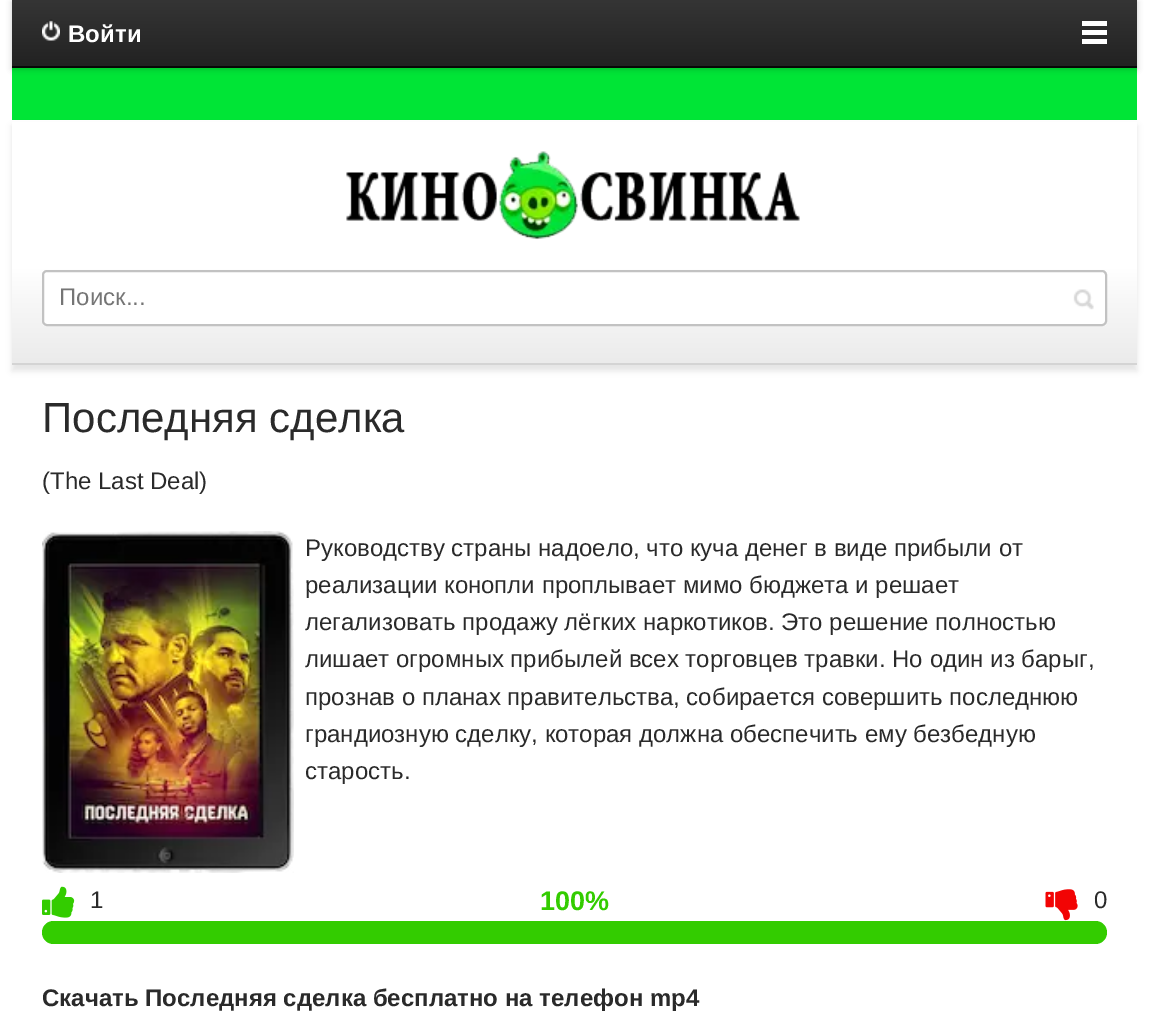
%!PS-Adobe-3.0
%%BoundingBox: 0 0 1149 1018
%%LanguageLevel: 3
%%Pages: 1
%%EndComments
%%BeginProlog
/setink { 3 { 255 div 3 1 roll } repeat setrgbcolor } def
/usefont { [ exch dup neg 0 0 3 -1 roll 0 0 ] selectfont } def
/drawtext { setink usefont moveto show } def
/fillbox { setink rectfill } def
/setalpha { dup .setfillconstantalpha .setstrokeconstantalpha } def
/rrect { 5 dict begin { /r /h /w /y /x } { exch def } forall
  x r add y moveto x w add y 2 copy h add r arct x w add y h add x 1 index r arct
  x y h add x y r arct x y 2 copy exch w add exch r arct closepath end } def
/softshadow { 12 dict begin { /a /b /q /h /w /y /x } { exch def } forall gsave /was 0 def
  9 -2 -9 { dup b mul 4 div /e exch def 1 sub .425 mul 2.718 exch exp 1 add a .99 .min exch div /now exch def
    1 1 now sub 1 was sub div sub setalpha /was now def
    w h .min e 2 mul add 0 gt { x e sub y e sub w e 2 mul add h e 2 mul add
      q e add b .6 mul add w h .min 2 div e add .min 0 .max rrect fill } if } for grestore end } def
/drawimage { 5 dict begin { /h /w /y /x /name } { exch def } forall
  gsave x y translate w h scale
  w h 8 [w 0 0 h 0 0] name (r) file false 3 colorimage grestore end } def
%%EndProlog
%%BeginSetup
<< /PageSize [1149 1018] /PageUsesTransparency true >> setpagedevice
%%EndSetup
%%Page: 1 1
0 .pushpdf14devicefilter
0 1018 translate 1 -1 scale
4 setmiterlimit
0 0 1149 1018 255 255 255 fillbox
12 68 1125 52 0 229 54 fillbox
0 0 0 setink
12 2 1125 67 0 3 0.2 softshadow
gsave 12 0 moveto 1137 0 lineto 1137 66 lineto 12 66 lineto closepath clip newpath
<< /ShadingType 2 /ColorSpace /DeviceRGB /Coords [575 0 575 66] /Extend [true true] /Function << /FunctionType 2 /Domain [0 1] /C0 [0.208 0.208 0.208] /C1 [0.133 0.133 0.133] /N 1 >> >> shfill grestore
12 66 1125 2 7 7 7 fillbox
(assets/img1.rgb) 42 19 18 22 drawimage
(Войти) 68 42 /LiberationSans-Bold 24 255 255 255 drawtext
1082 30 25 5 255 255 255 fillbox
1082 21 25 5 255 255 255 fillbox
1082 39 25 5 255 255 255 fillbox
0 0 0 setink
12 126 1125 245 0 3 0.1 softshadow
gsave 12 122 moveto 1137 122 lineto 1137 363 lineto 12 363 lineto closepath clip newpath
<< /ShadingType 2 /ColorSpace /DeviceRGB /Coords [575 120 575 363] /Extend [true true] /Function << /FunctionType 3 /Domain [0 1] /Functions [<< /FunctionType 2 /Domain [0 1] /C0 [1 1 1] /C1 [1 1 1] /N 1 >> << /FunctionType 2 /Domain [0 1] /C0 [1 1 1] /C1 [0.922 0.922 0.922] /N 1 >>] /Bounds [0.6] /Encode [0 1 0 1] >> >> shfill grestore
12 363 1125 2 212 212 212 fillbox
(assets/img2.rgb) 346 151 454 89 drawimage
gsave
42 270 1065 56 rectclip
255 255 255 setink
42 321 moveto 42 324 44 327 47 327 curveto 1102 327 lineto 1105 327 1107 324 1107 321 curveto 1107 323 1105 326 1102 326 curveto 46 326 lineto 44 326 42 323 42 321 curveto closepath fill
grestore
255 255 255 setink
43 271 1063 54 4 rrect gsave fill grestore
194 194 194 setink
2 setlinewidth
stroke
(Поиск...) 59 305 /LiberationSans-Regular 24 117 117 117 drawtext
(assets/img3.rgb) 1073 289 21 21 drawimage
(Последняя сделка) 42 432 /LiberationSans-Regular 42 42 42 42 drawtext
(\(The Last Deal\)) 42 489 /LiberationSans-Regular 24 42 42 42 drawtext
(assets/img4.rgb) 42 531 252 342 drawimage
(Руководству страны надоело, что куча денег в виде прибыли от) 305 556 /LiberationSans-Regular 24 42 42 42 drawtext
(реализации конопли проплывает мимо бюджета и решает) 305 593 /LiberationSans-Regular 24 42 42 42 drawtext
(легализовать продажу лёгких наркотиков. Это решение полностью) 305 630 /LiberationSans-Regular 24 42 42 42 drawtext
(лишает огромных прибылей всех торговцев травки. Но один из барыг,) 305 667 /LiberationSans-Regular 24 42 42 42 drawtext
(прознав о планах правительства, собирается совершить последнюю) 305 705 /LiberationSans-Regular 24 42 42 42 drawtext
(грандиозную сделку, которая должна обеспечить ему безбедную) 305 742 /LiberationSans-Regular 24 42 42 42 drawtext
(старость.) 305 779 /LiberationSans-Regular 24 42 42 42 drawtext
(assets/img5.rgb) 42 886 33 32 drawimage
(1) 90 908 /LiberationSans-Regular 24 42 42 42 drawtext
(100%) 540 910 /LiberationSans-Bold 27 51 204 0 drawtext
(assets/img6.rgb) 1045 889 33 32 drawimage
(0) 1094 908 /LiberationSans-Regular 24 42 42 42 drawtext
51 204 0 setink
42 921 1065 23 11.5 rrect fill
(Скачать Последняя сделка бесплатно на телефон mp4) 42 1006 /LiberationSans-Bold 24 42 42 42 drawtext
.poppdf14devicefilter showpage
%%EOF
